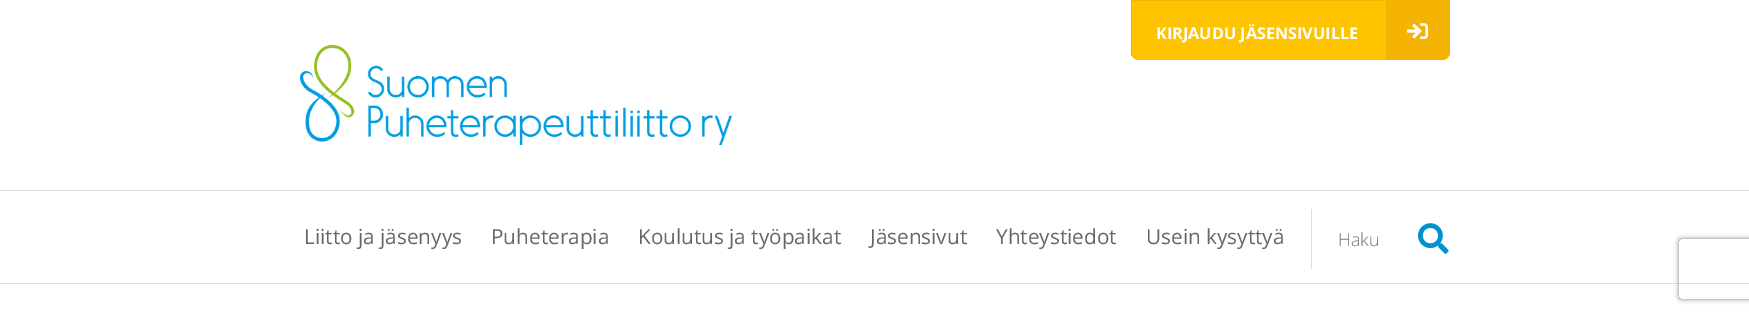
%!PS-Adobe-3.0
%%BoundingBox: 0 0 1749 313
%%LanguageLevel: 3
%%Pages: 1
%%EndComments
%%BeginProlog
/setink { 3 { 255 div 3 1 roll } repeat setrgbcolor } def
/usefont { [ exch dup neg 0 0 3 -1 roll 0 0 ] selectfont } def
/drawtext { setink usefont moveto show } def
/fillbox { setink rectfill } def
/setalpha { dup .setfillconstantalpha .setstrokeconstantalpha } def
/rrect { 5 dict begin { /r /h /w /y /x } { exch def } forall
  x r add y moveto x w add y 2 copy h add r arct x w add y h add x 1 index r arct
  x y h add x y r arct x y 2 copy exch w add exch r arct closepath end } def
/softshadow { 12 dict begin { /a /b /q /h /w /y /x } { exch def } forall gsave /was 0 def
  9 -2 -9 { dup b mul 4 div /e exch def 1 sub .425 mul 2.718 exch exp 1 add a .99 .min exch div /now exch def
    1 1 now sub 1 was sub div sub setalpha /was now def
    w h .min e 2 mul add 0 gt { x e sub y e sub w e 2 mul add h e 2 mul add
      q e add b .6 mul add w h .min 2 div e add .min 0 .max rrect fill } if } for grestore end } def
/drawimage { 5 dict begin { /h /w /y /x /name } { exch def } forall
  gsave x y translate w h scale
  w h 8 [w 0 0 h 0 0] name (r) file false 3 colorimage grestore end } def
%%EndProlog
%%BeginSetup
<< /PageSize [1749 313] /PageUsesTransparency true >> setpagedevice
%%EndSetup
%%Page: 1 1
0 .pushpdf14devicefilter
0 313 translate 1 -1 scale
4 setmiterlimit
0 0 1749 313 255 255 255 fillbox
255 196 0 setink
1131 0 moveto 1450 0 lineto 1450 52 lineto 1450 56.5 1446.5 60 1442 60 curveto 1139 60 lineto 1134.5 60 1131 56.5 1131 52 curveto closepath fill
1131 0 319 1 244 178 2 fillbox
1131 0 1 56 244 178 2 fillbox
(KIRJAUDU JÄSENSIVUILLE) 1156 39 /OpenSans-Bold 16.25 255 255 255 drawtext
244 178 2 setink
1386 1 moveto 1386 60 lineto 1442 60 lineto 1446 60 1450 56 1450 52 curveto 1450 1 lineto closepath fill
(assets/img1.rgb) 1407 23 22 16 drawimage
(assets/img2.rgb) 300 45 432 100 drawimage
0 190 1749 1 221 221 221 fillbox
0 283 1749 1 221 221 221 fillbox
(Liitto ja jäsenyys) 304 244 /OpenSans-Regular 20.75 102 102 102 drawtext
(Puheterapia) 491 244 /OpenSans-Regular 20.75 102 102 102 drawtext
(Koulutus ja työpaikat) 638 244 /OpenSans-Regular 20.75 102 102 102 drawtext
(Jäsensivut) 870 244 /OpenSans-Regular 20.75 102 102 102 drawtext
(Yhteystiedot) 996 244 /OpenSans-Regular 20.75 102 102 102 drawtext
(Usein kysyttyä) 1146 244 /OpenSans-Regular 20.75 102 102 102 drawtext
1311 209 1 60 221 221 221 fillbox
(Haku) 1338 246 /OpenSans-Light 18 108 117 125 drawtext
(assets/img3.rgb) 1418 223 31 31 drawimage
gsave
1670 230 moveto 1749 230 lineto 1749 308 lineto 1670 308 lineto closepath 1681 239 moveto 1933 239 lineto 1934 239 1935 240 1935 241 curveto 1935 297 lineto 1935 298 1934 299 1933 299 curveto 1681 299 lineto 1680 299 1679 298 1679 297 curveto 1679 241 lineto 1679 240 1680 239 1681 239 curveto closepath eoclip newpath
128 128 128 setink
1679 239 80 60 2 2.5 1 softshadow
grestore
.poppdf14devicefilter showpage
%%EOF
